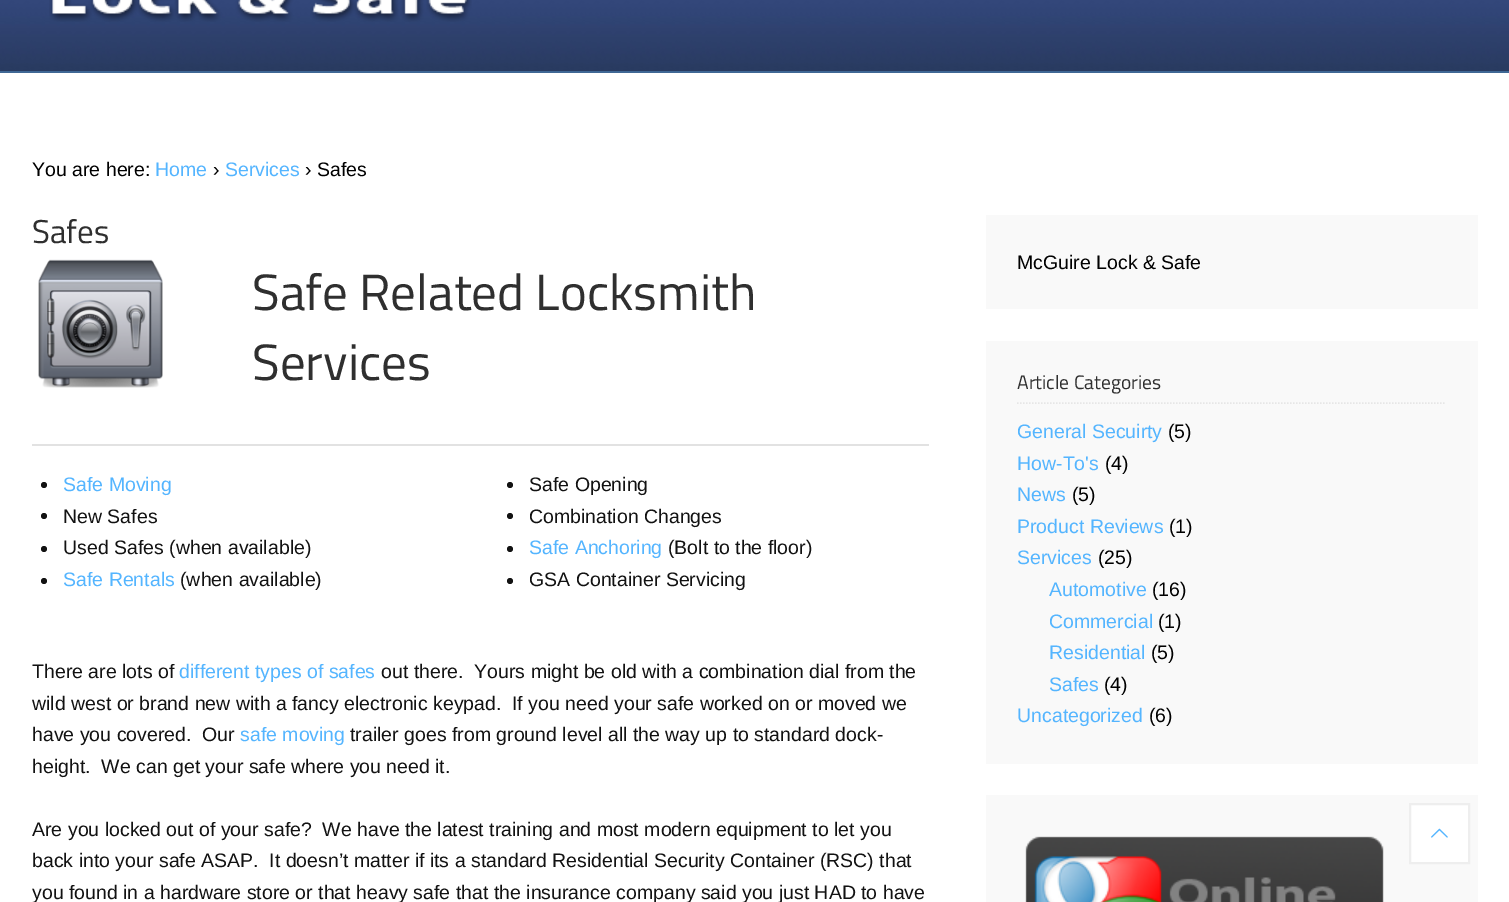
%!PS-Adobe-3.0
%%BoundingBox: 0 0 1509 902
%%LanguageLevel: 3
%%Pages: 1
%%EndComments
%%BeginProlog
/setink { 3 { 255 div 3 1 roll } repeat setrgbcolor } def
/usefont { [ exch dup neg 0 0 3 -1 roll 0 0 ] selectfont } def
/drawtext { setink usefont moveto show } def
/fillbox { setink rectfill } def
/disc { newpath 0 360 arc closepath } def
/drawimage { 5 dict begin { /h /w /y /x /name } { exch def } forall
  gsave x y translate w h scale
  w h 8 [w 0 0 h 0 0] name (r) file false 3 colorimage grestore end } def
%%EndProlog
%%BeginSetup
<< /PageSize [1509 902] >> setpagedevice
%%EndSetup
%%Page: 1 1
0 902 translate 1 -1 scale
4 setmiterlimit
0 0 1509 902 255 255 255 fillbox
(assets/img1.rgb) 0 0 1509 71 drawimage
0 71 1509 2 64 104 149 fillbox
(assets/img2.rgb) 49 0 423 22 drawimage
(You are here:) 32 176 /LiberationSans-Regular 19.5 0 0 0 drawtext
(Home) 155 176 /LiberationSans-Regular 19.5 84 181 255 drawtext
(›) 213 176 /LiberationSans-Regular 19.5 0 0 0 drawtext
(Services) 225 176 /LiberationSans-Regular 19.5 84 181 255 drawtext
(› Safes) 305 176 /LiberationSans-Regular 19.5 0 0 0 drawtext
(Safes) 32 243 /TitilliumWeb-Regular 33 47 47 47 drawtext
(assets/img3.rgb) 38 259 125 129 drawimage
(Safe Related Locksmith) 252 310 /TitilliumWeb-Regular 51 47 47 47 drawtext
(Services) 252 380 /TitilliumWeb-Regular 51 47 47 47 drawtext
32 444 897 2 226 226 226 fillbox
18 18 18 setink
44 485 3 disc fill
(Safe Moving) 63 491 /LiberationSans-Regular 19.5 84 181 255 drawtext
18 18 18 setink
44 516 3 disc fill
(New Safes) 63 523 /LiberationSans-Regular 19.5 18 18 18 drawtext
44 549 3 disc fill
(Used Safes \(when available\)) 63 554 /LiberationSans-Regular 19.5 18 18 18 drawtext
44 581 3 disc fill
(Safe Rentals) 63 586 /LiberationSans-Regular 19.5 84 181 255 drawtext
(\(when available\)) 180 586 /LiberationSans-Regular 19.5 18 18 18 drawtext
510 485 3 disc fill
(Safe Opening) 529 491 /LiberationSans-Regular 19.5 18 18 18 drawtext
510 516 3 disc fill
(Combination Changes) 529 523 /LiberationSans-Regular 19.5 18 18 18 drawtext
510 549 3 disc fill
(Safe Anchoring) 529 554 /LiberationSans-Regular 19.5 84 181 255 drawtext
(\(Bolt to the floor\)) 668 554 /LiberationSans-Regular 19.5 18 18 18 drawtext
510 581 3 disc fill
(GSA Container Servicing) 529 586 /LiberationSans-Regular 19.5 18 18 18 drawtext
(There are lots of) 32 678 /LiberationSans-Regular 19.5 18 18 18 drawtext
(different types of safes) 179 678 /LiberationSans-Regular 19.5 84 181 255 drawtext
(out there.  Yours might be old with a combination dial from the) 381 678 /LiberationSans-Regular 19.5 18 18 18 drawtext
(wild west or brand new with a fancy electronic keypad.  If you need your safe worked on or moved we) 32 710 /LiberationSans-Regular 19.5 18 18 18 drawtext
(have you covered.  Our) 32 741 /LiberationSans-Regular 19.5 18 18 18 drawtext
(safe moving) 240 741 /LiberationSans-Regular 19.5 84 181 255 drawtext
(trailer goes from ground level all the way up to standard dock-) 350 741 /LiberationSans-Regular 19.5 18 18 18 drawtext
(height.  We can get your safe where you need it.) 32 773 /LiberationSans-Regular 19.5 18 18 18 drawtext
(Are you locked out of your safe?  We have the latest training and most modern equipment to let you) 32 836 /LiberationSans-Regular 19.5 18 18 18 drawtext
(back into your safe ASAP.  It doesn’t matter if its a standard Residential Security Container \(RSC\) that) 32 867 /LiberationSans-Regular 19.5 18 18 18 drawtext
(you found in a hardware store or that heavy safe that the insurance company said you just HAD to have) 32 899 /LiberationSans-Regular 19.5 18 18 18 drawtext
986 215 492 94 249 249 249 fillbox
(McGuire Lock & Safe) 1017 269 /LiberationSans-Regular 19.5 0 0 0 drawtext
986 341 492 423 249 249 249 fillbox
230 230 230 setink
1.5 setlinewidth
[1.5 1.5] 0 setdash
1017 403 moveto 1446 403 lineto stroke
(Article Categories) 1017 389 /TitilliumWeb-Regular 19.5 47 47 47 drawtext
(General Secuirty) 1017 438 /LiberationSans-Regular 19.5 84 181 255 drawtext
(\(5\)) 1168 438 /LiberationSans-Regular 19.5 0 0 0 drawtext
(How-To's) 1017 470 /LiberationSans-Regular 19.5 84 181 255 drawtext
(\(4\)) 1105 470 /LiberationSans-Regular 19.5 0 0 0 drawtext
(News) 1017 501 /LiberationSans-Regular 19.5 84 181 255 drawtext
(\(5\)) 1072 501 /LiberationSans-Regular 19.5 0 0 0 drawtext
(Product Reviews) 1017 533 /LiberationSans-Regular 19.5 84 181 255 drawtext
(\(1\)) 1169 533 /LiberationSans-Regular 19.5 0 0 0 drawtext
(Services) 1017 564 /LiberationSans-Regular 19.5 84 181 255 drawtext
(\(25\)) 1098 564 /LiberationSans-Regular 19.5 0 0 0 drawtext
(Automotive) 1049 596 /LiberationSans-Regular 19.5 84 181 255 drawtext
(\(16\)) 1152 596 /LiberationSans-Regular 19.5 0 0 0 drawtext
(Commercial) 1049 628 /LiberationSans-Regular 19.5 84 181 255 drawtext
(\(1\)) 1158 628 /LiberationSans-Regular 19.5 0 0 0 drawtext
(Residential) 1049 659 /LiberationSans-Regular 19.5 84 181 255 drawtext
(\(5\)) 1151 659 /LiberationSans-Regular 19.5 0 0 0 drawtext
(Safes) 1049 691 /LiberationSans-Regular 19.5 84 181 255 drawtext
(\(4\)) 1104 691 /LiberationSans-Regular 19.5 0 0 0 drawtext
(Uncategorized) 1017 722 /LiberationSans-Regular 19.5 84 181 255 drawtext
(\(6\)) 1149 722 /LiberationSans-Regular 19.5 0 0 0 drawtext
986 795 492 107 249 249 249 fillbox
(assets/img4.rgb) 1025 836 359 66 drawimage
255 255 255 setink
1410 804 moveto 1469 804 lineto 1469 863 lineto 1410 863 lineto closepath gsave fill grestore
238 238 238 setink
2 setlinewidth
[] 0 setdash
stroke
(assets/img5.rgb) 1431 828 17 10 drawimage
showpage
%%EOF
